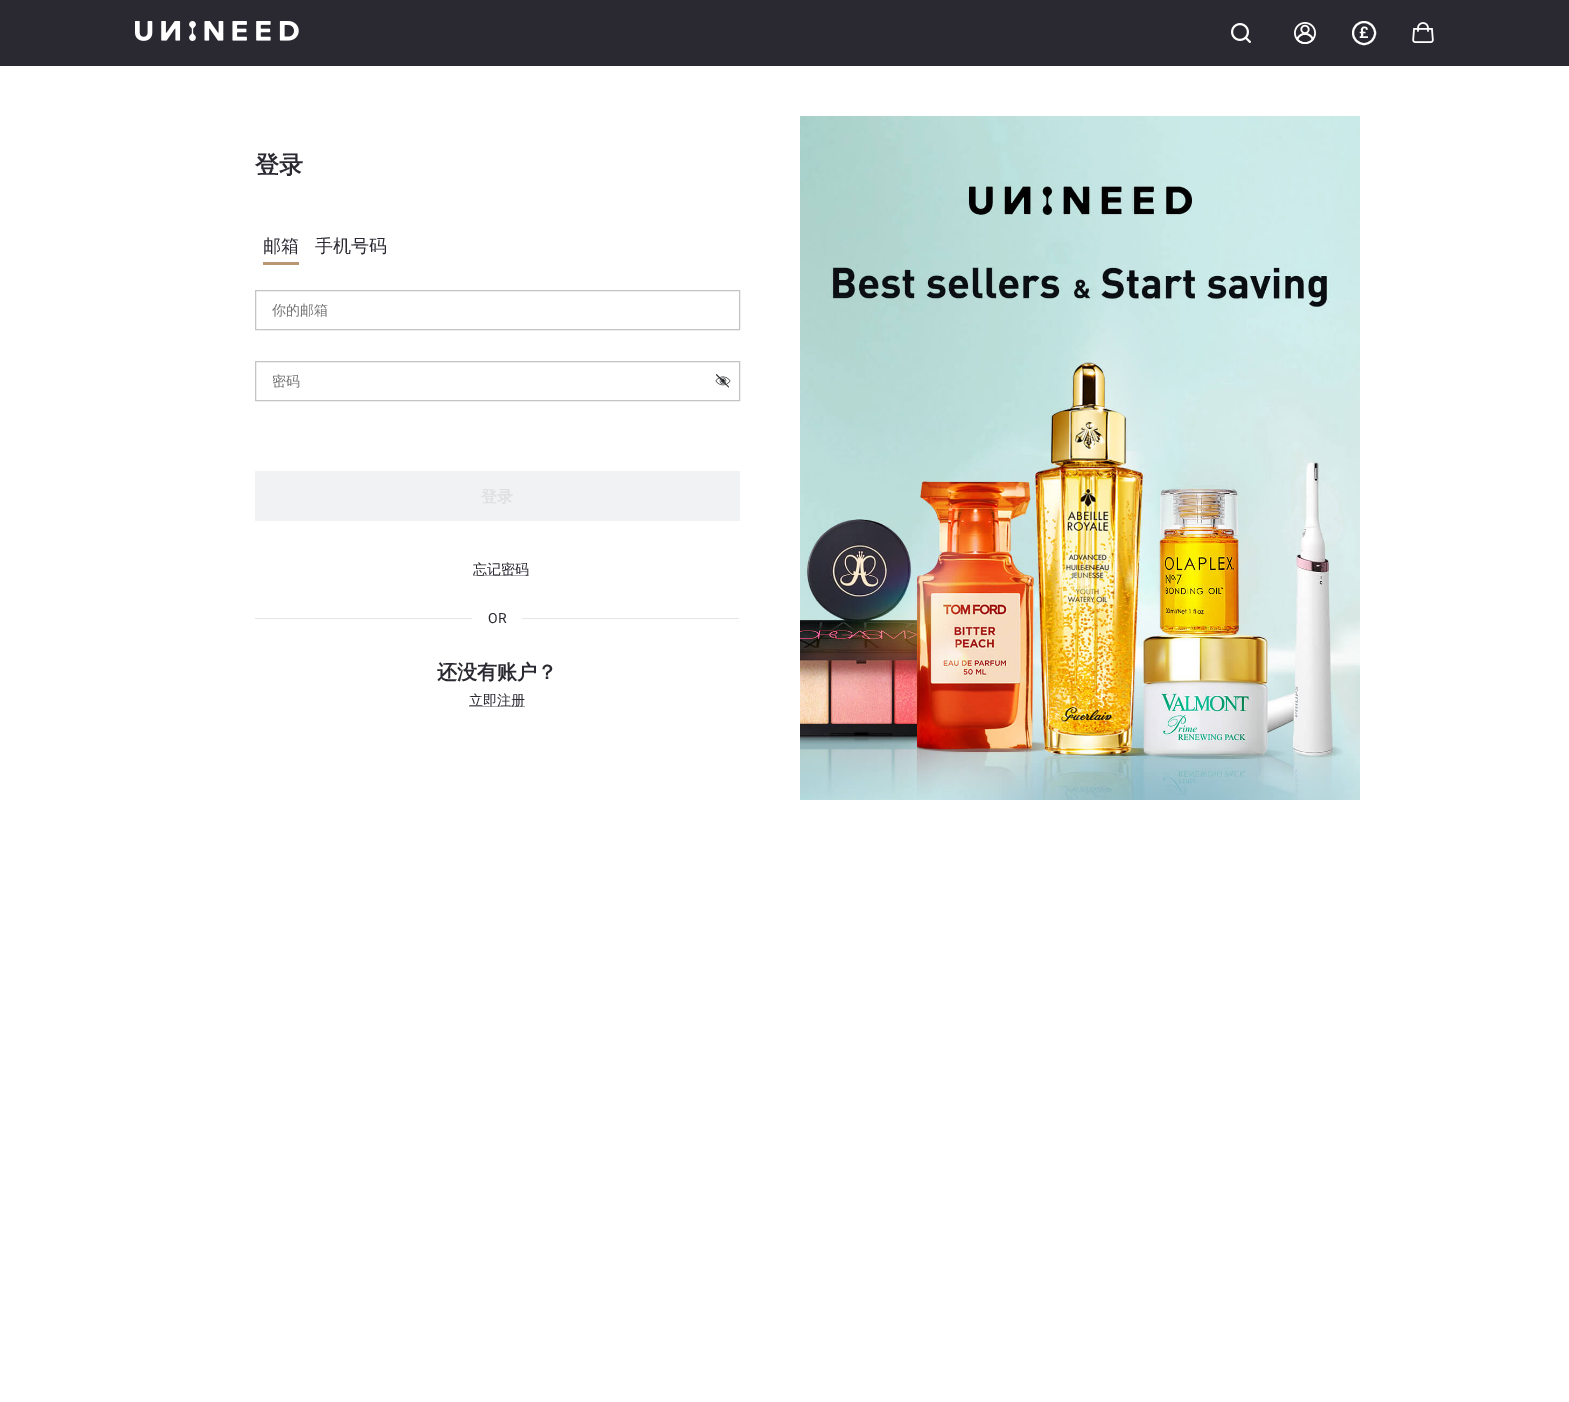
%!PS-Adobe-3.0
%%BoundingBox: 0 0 1569 1402
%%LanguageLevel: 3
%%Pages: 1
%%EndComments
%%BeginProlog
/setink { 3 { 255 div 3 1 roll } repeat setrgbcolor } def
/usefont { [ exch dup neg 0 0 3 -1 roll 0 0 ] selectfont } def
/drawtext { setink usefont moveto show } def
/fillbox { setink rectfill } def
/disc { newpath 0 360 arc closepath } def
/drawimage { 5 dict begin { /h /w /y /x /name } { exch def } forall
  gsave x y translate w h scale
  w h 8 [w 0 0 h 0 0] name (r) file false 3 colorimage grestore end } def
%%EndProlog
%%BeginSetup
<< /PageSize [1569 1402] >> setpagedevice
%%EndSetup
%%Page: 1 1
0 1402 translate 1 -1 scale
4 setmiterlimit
0 0 1569 1402 255 255 255 fillbox
0 0 1569 66 42 41 49 fillbox
(assets/img1.rgb) 135 21 164 20 drawimage
(assets/img2.rgb) 1231 23 20 20 drawimage
(assets/img3.rgb) 1294 22 22 22 drawimage
255 255 255 setink
2 setlinewidth
1364 33 11 disc stroke
(£) 1359 38 /Roboto-SemiBold 16 255 255 255 drawtext
(assets/img4.rgb) 1412 22 22 21 drawimage
(登录) 255 173 /WenQuanYiZenHei-Bold 24 42 41 49 drawtext
(邮箱) 263 252 /WenQuanYiZenHei-Medium 18 42 41 49 drawtext
263 262 36 3 185 151 115 fillbox
(手机号码) 315 252 /WenQuanYiZenHei-Medium 18 42 41 49 drawtext
196 196 196 setink
1 setlinewidth
255.5 290.5 484 39 rectstroke
(你的邮箱) 272 315 /WenQuanYiZenHei-Medium 14 117 117 117 drawtext
196 196 196 setink
255.5 361.5 484 39 rectstroke
(密码) 272 386 /WenQuanYiZenHei-Medium 14 117 117 117 drawtext
(assets/img5.rgb) 715 376 16 10 drawimage
42 41 49 setink
716.5 374 moveto 729 387 lineto 728.5 387.5 lineto 716 375 lineto closepath fill
255 471 485 50 241 242 243 fillbox
(登录) 481 502 /WenQuanYiZenHei-Bold 16 224 224 225 drawtext
473 575 56 1 170 169 173 fillbox
(忘记密码) 473 574 /WenQuanYiZenHei-Medium 14 42 41 49 drawtext
255 618 217 1 230 230 230 fillbox
(OR) 488 623 /Roboto-Regular 14 42 41 49 drawtext
522 618 217 1 230 230 230 fillbox
(还没有账户？) 437 679 /WenQuanYiZenHei-Bold 20 42 41 49 drawtext
469 706 56 1 170 169 173 fillbox
(立即注册) 469 705 /WenQuanYiZenHei-Medium 14 42 41 49 drawtext
(assets/img6.rgb) 800 116 560 684 drawimage
showpage
%%EOF
